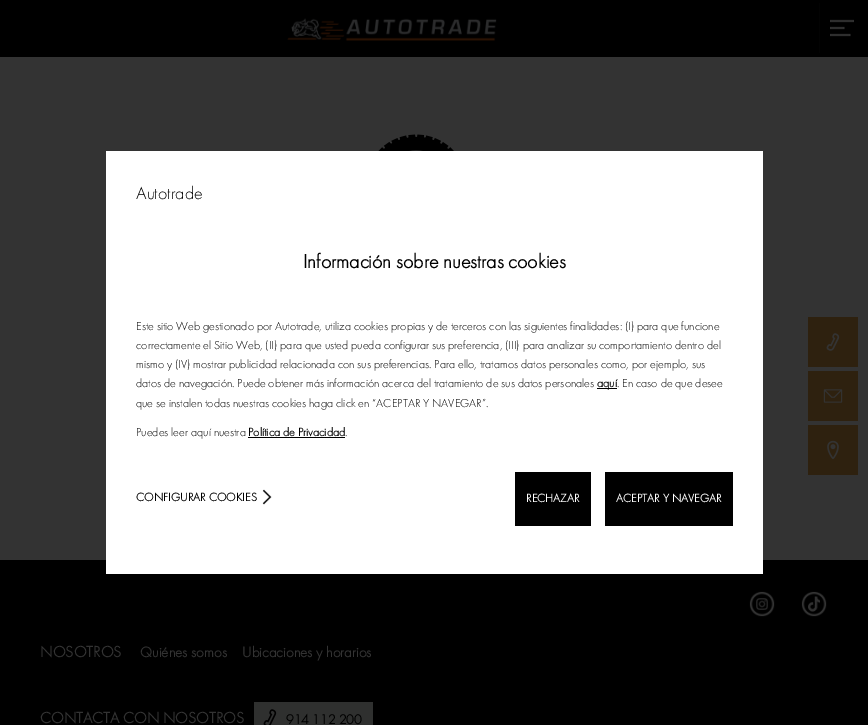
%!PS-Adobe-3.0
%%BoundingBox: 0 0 868 725
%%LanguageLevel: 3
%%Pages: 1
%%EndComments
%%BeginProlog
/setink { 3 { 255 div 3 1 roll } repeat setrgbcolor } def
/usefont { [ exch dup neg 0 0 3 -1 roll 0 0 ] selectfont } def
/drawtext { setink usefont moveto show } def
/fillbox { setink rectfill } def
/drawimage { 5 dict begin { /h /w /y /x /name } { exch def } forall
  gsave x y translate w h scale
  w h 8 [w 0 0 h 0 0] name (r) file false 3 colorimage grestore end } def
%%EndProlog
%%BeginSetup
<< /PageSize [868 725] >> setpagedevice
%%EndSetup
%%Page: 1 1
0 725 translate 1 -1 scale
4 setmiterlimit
0 0 868 725 51 51 51 fillbox
0 0 868 57 0 0 0 fillbox
(assets/img1.rgb) 287 18 210 23 drawimage
819 3 1 50 3 3 3 fillbox
(assets/img2.rgb) 830 19 24 18 drawimage
(assets/img3.rgb) 378 134 76 17 drawimage
0 560 868 165 0 0 0 fillbox
106 151 657 423 255 255 255 fillbox
(Autotrade) 136 199 /FuturaPT-Light 18 0 0 0 drawtext
(Información sobre nuestras cookies) 303 268 /FuturaPT-Bold 20 0 0 0 drawtext
(Este sitio Web gestionado por Autotrade, utiliza cookies propias y de terceros con las siguientes finalidades: \(I\) para que funcione) 136 330 /FuturaPT-Light 12 0 0 0 drawtext
(correctamente el Sitio Web, \(II\) para que usted pueda configurar sus preferencia, \(III\) para analizar su comportamiento dentro del) 136 349 /FuturaPT-Light 12 0 0 0 drawtext
(mismo y \(IV\) mostrar publicidad relacionada con sus preferencias. Para ello, tratamos datos personales como, por ejemplo, sus) 136 368 /FuturaPT-Light 12 0 0 0 drawtext
(datos de navegación. Puede obtener más información acerca del tratamiento de sus datos personales) 136 387 /FuturaPT-Light 12 0 0 0 drawtext
597 388 20 1 0 0 0 fillbox
(aquí) 597 387 /FuturaPT-Bold 12 0 0 0 drawtext
(. En caso de que desee) 617 387 /FuturaPT-Light 12 0 0 0 drawtext
(que se instalen todas nuestras cookies haga click en “ACEPTAR Y NAVEGAR”.) 136 407 /FuturaPT-Light 12 0 0 0 drawtext
(Puedes leer aquí nuestra) 136 436 /FuturaPT-Light 12 0 0 0 drawtext
(Política de Privacidad) 248 436 /FuturaPT-Bold 12 0 0 0 drawtext
248 437 97 1 0 0 0 fillbox
(.) 345 436 /FuturaPT-Light 12 0 0 0 drawtext
(CONFIGURAR COOKIES) 136 501 /FuturaPT-Bold 12 0 0 0 drawtext
(assets/img4.rgb) 262 489 10 16 drawimage
515 472 76 54 0 0 0 fillbox
(RECHAZAR) 526 502 /FuturaPT-Bold 12 255 255 255 drawtext
605 472 128 54 0 0 0 fillbox
(ACEPTAR Y NAVEGAR) 616 502 /FuturaPT-Bold 12 255 255 255 drawtext
808 317 50 50 46 33 15 fillbox
(assets/img5.rgb) 826 333 14 18 drawimage
808 371 50 50 46 33 15 fillbox
(assets/img6.rgb) 823 389 20 14 drawimage
808 425 50 50 46 33 15 fillbox
(assets/img7.rgb) 827 440 12 20 drawimage
(assets/img8.rgb) 749 591 26 26 drawimage
(assets/img9.rgb) 801 591 26 26 drawimage
(NOSOTROS) 40 657 /FuturaPT-Bold 16 51 51 51 drawtext
(Quiénes somos) 140 657 /FuturaPT-Bold 15 51 51 51 drawtext
(Ubicaciones y horarios) 242 657 /FuturaPT-Bold 15 51 51 51 drawtext
(CONTACTA CON NOSOTROS) 40 723 /FuturaPT-Bold 16 51 51 51 drawtext
254 702 119 23 47 48 47 fillbox
(assets/img10.rgb) 263 709 14 16 drawimage
(914 112 200) 286 724 /FuturaPT-Bold 14 0 0 0 drawtext
showpage
%%EOF
